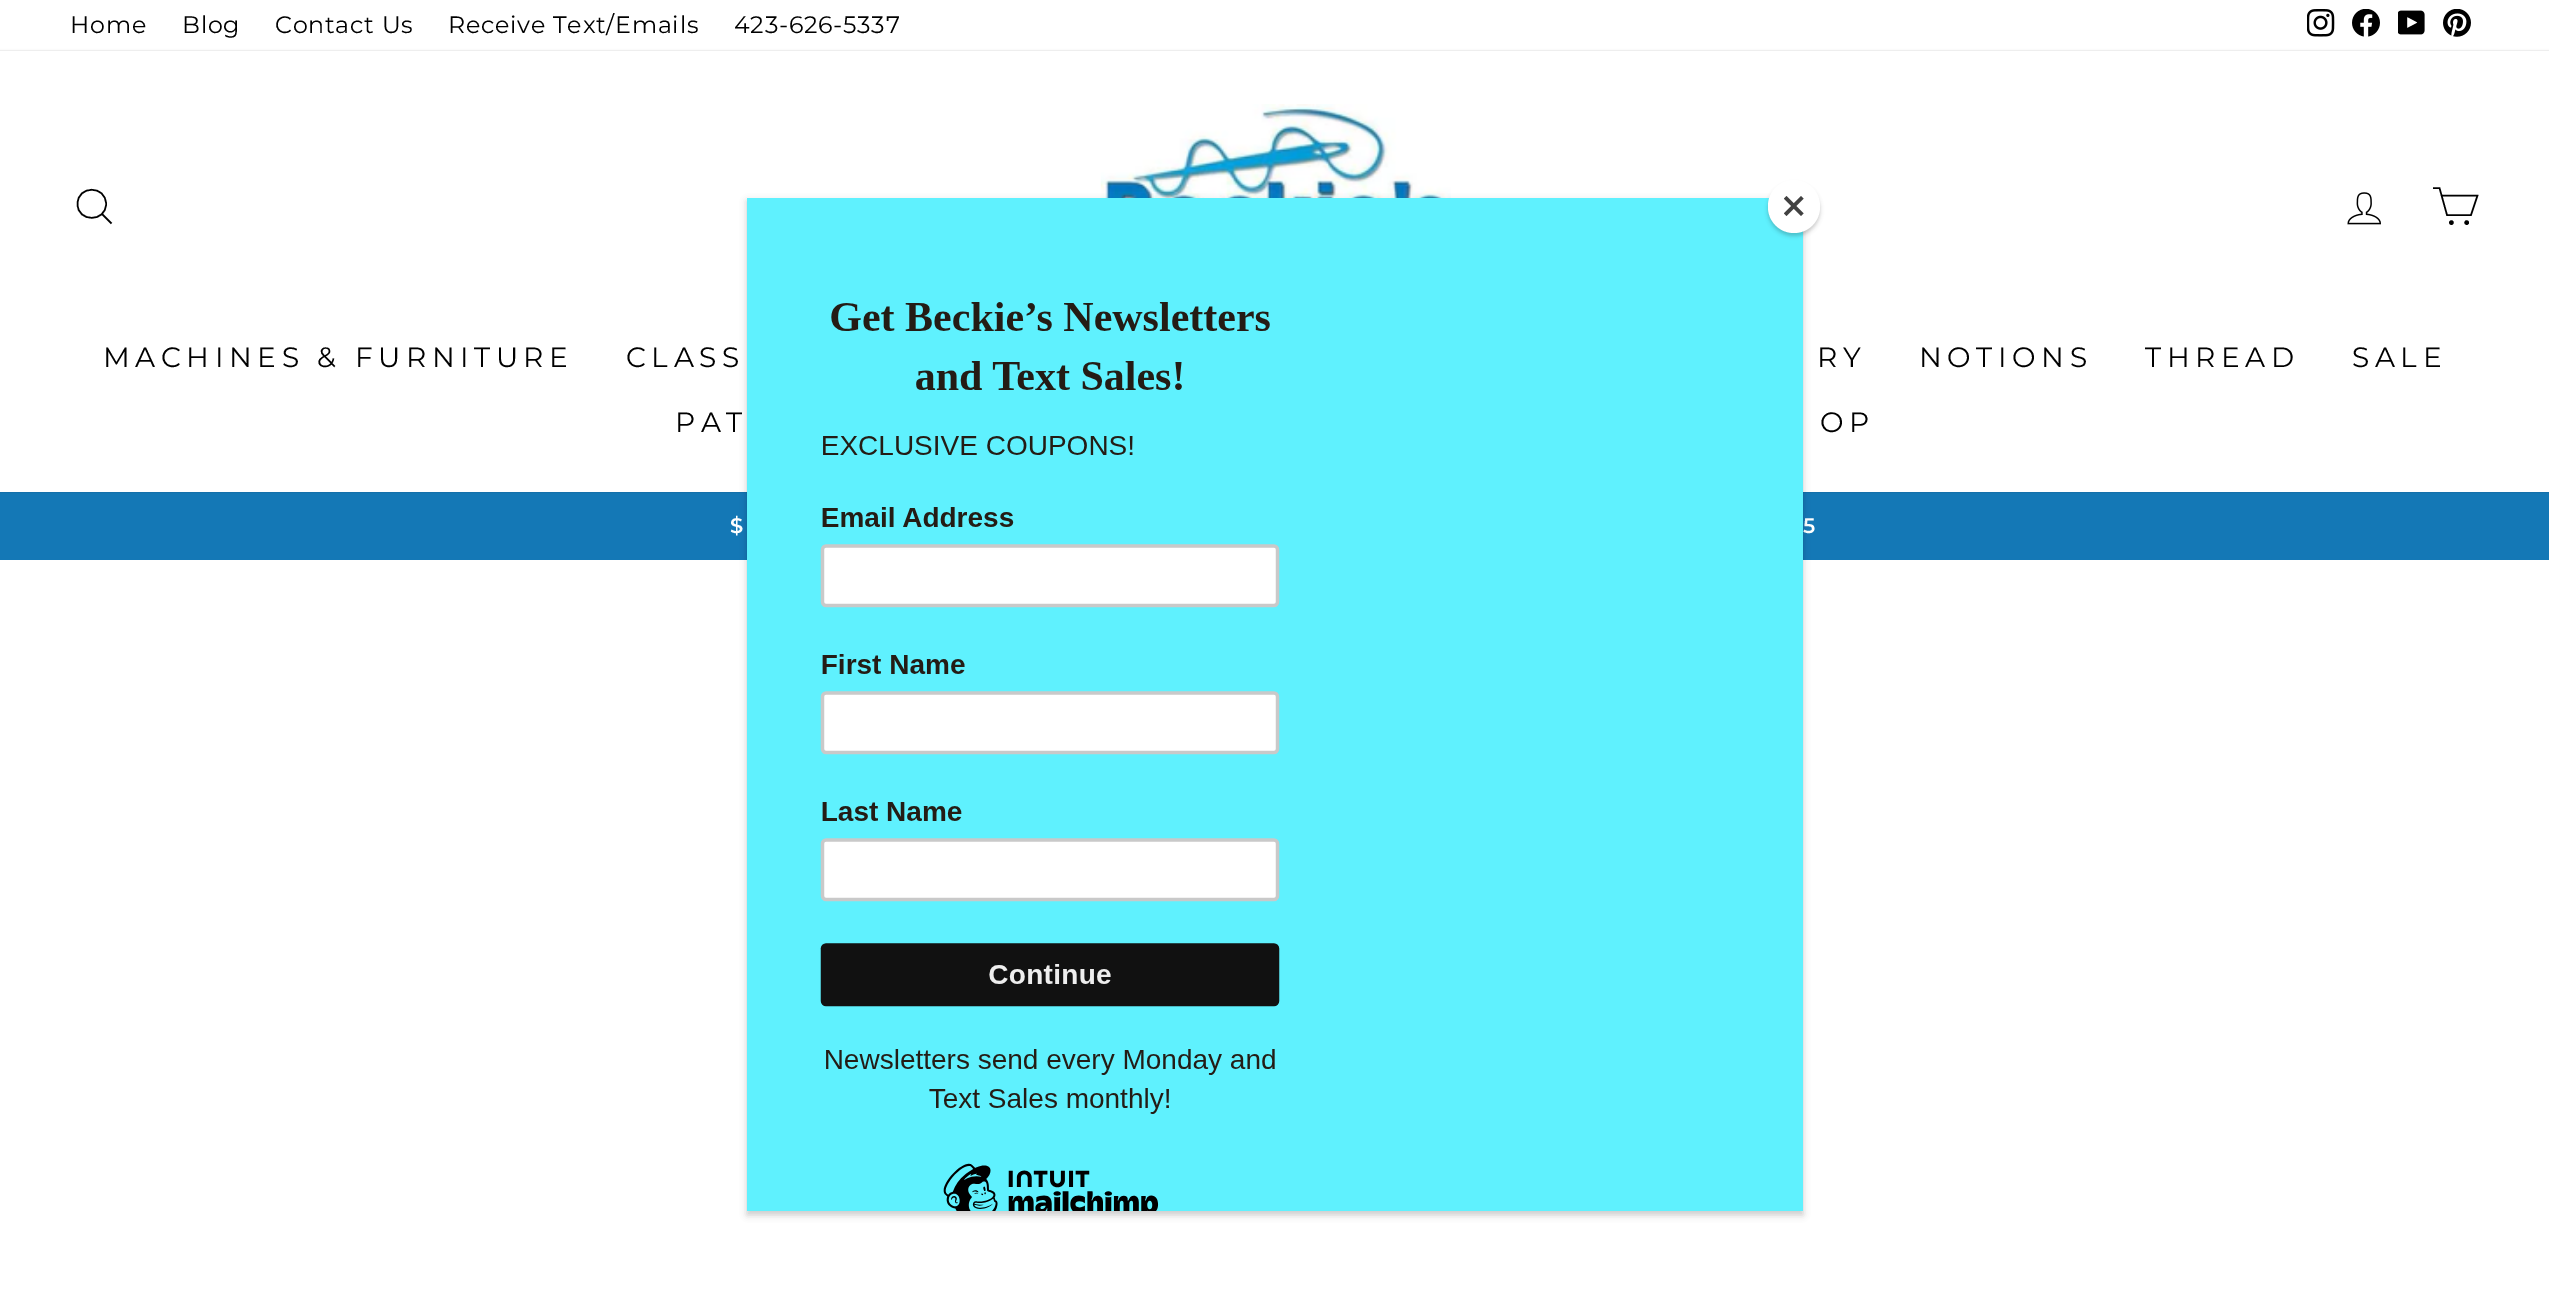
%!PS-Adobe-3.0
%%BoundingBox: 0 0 2549 1315
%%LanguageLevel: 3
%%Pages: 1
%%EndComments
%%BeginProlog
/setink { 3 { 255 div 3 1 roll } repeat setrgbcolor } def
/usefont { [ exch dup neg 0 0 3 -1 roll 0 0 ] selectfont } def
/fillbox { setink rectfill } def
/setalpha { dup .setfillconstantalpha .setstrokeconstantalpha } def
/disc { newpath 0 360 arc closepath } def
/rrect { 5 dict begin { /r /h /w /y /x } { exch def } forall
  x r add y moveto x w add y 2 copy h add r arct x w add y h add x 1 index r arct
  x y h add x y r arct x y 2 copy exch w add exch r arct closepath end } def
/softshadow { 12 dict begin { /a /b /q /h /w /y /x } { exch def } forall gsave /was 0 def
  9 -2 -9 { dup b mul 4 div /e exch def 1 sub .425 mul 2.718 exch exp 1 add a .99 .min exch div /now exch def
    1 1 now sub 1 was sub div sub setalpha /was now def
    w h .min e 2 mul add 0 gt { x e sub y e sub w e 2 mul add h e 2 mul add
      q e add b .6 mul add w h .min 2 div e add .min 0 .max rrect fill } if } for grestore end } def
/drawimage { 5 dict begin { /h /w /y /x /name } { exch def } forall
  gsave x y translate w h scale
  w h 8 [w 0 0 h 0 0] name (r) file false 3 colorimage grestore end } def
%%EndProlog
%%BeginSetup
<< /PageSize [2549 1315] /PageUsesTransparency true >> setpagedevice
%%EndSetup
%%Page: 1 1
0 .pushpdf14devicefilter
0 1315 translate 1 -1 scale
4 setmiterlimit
0 0 2549 1315 255 255 255 fillbox
/Montserrat-Regular 23.75 usefont
0 0 0 setink
70 33 moveto 0.75 0 (Home) ashow
182 33 moveto 0.75 0 (Blog) ashow
275 33 moveto 0.75 0 (Contact Us) ashow
448 33 moveto 0.75 0 (Receive Text/Emails) ashow
734 33 moveto 0.75 0 (423-626-5337) ashow
(assets/img1.rgb) 2307 9 28 28 drawimage
(assets/img2.rgb) 2352 9 28 28 drawimage
(assets/img3.rgb) 2398 10 27 25 drawimage
(assets/img4.rgb) 2443 9 28 28 drawimage
0 492 2549 68 20 120 182 fillbox
0 0 0 setink
0 51 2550 441 0 1 0.2 softshadow
0 51 2549 441 255 255 255 fillbox
(assets/img5.rgb) 1100 104 351 94 drawimage
0 0 0 setink
1.5 setlinewidth
106 204 moveto 106 222.5 77.5 222.5 77.5 204 curveto 77.5 185 106 185 106 204 curveto closepath 111.5 223.5 moveto 102 214 lineto stroke
(assets/img6.rgb) 2347 192 34 33 drawimage
2441.5 195.5 moveto 2477.5 195.5 lineto 2471 215 lineto 2447 215 lineto 2439.5 188 lineto 2433 188 lineto stroke
2451.4 222.6 1.5 disc gsave fill grestore
stroke
2466.7 222.6 1.5 disc gsave fill grestore
stroke
/Montserrat-Regular 28 usefont
103 367 moveto 5.6 0 (MACHINES & FURNITURE) ashow
626 367 moveto 5.6 0 (CLASS) ashow
1817 367 moveto 5.6 0 (RY) ashow
1919 367 moveto 5.6 0 (NOTIONS) ashow
2145 367 moveto 5.6 0 (THREAD) ashow
2352 367 moveto 5.6 0 (SALE) ashow
675 432 moveto 5.6 0 (PAT) ashow
1820 432 moveto 5.6 0 (OP) ashow
/Montserrat-SemiBold 21 usefont
255 255 255 setink
730 533 moveto 4 0 ($) ashow
1803 533 moveto 4 0 (5) ashow
0 0 0 setink
747 201 1056 1014 0 3.5 0.2 softshadow
(assets/img7.rgb) 747 198 1056 1013 drawimage
1768 184 52 52 26 2 0.2 softshadow
255 255 255 setink
1768 180 52 53 26 rrect fill
65 65 65 setink
1801 196 moveto 1803.5 198.5 lineto 1786.5 216 lineto 1784 213.5 lineto closepath fill
1784 198.5 moveto 1786.5 196 lineto 1803.5 213.5 lineto 1801 216 lineto closepath fill
.poppdf14devicefilter showpage
%%EOF
